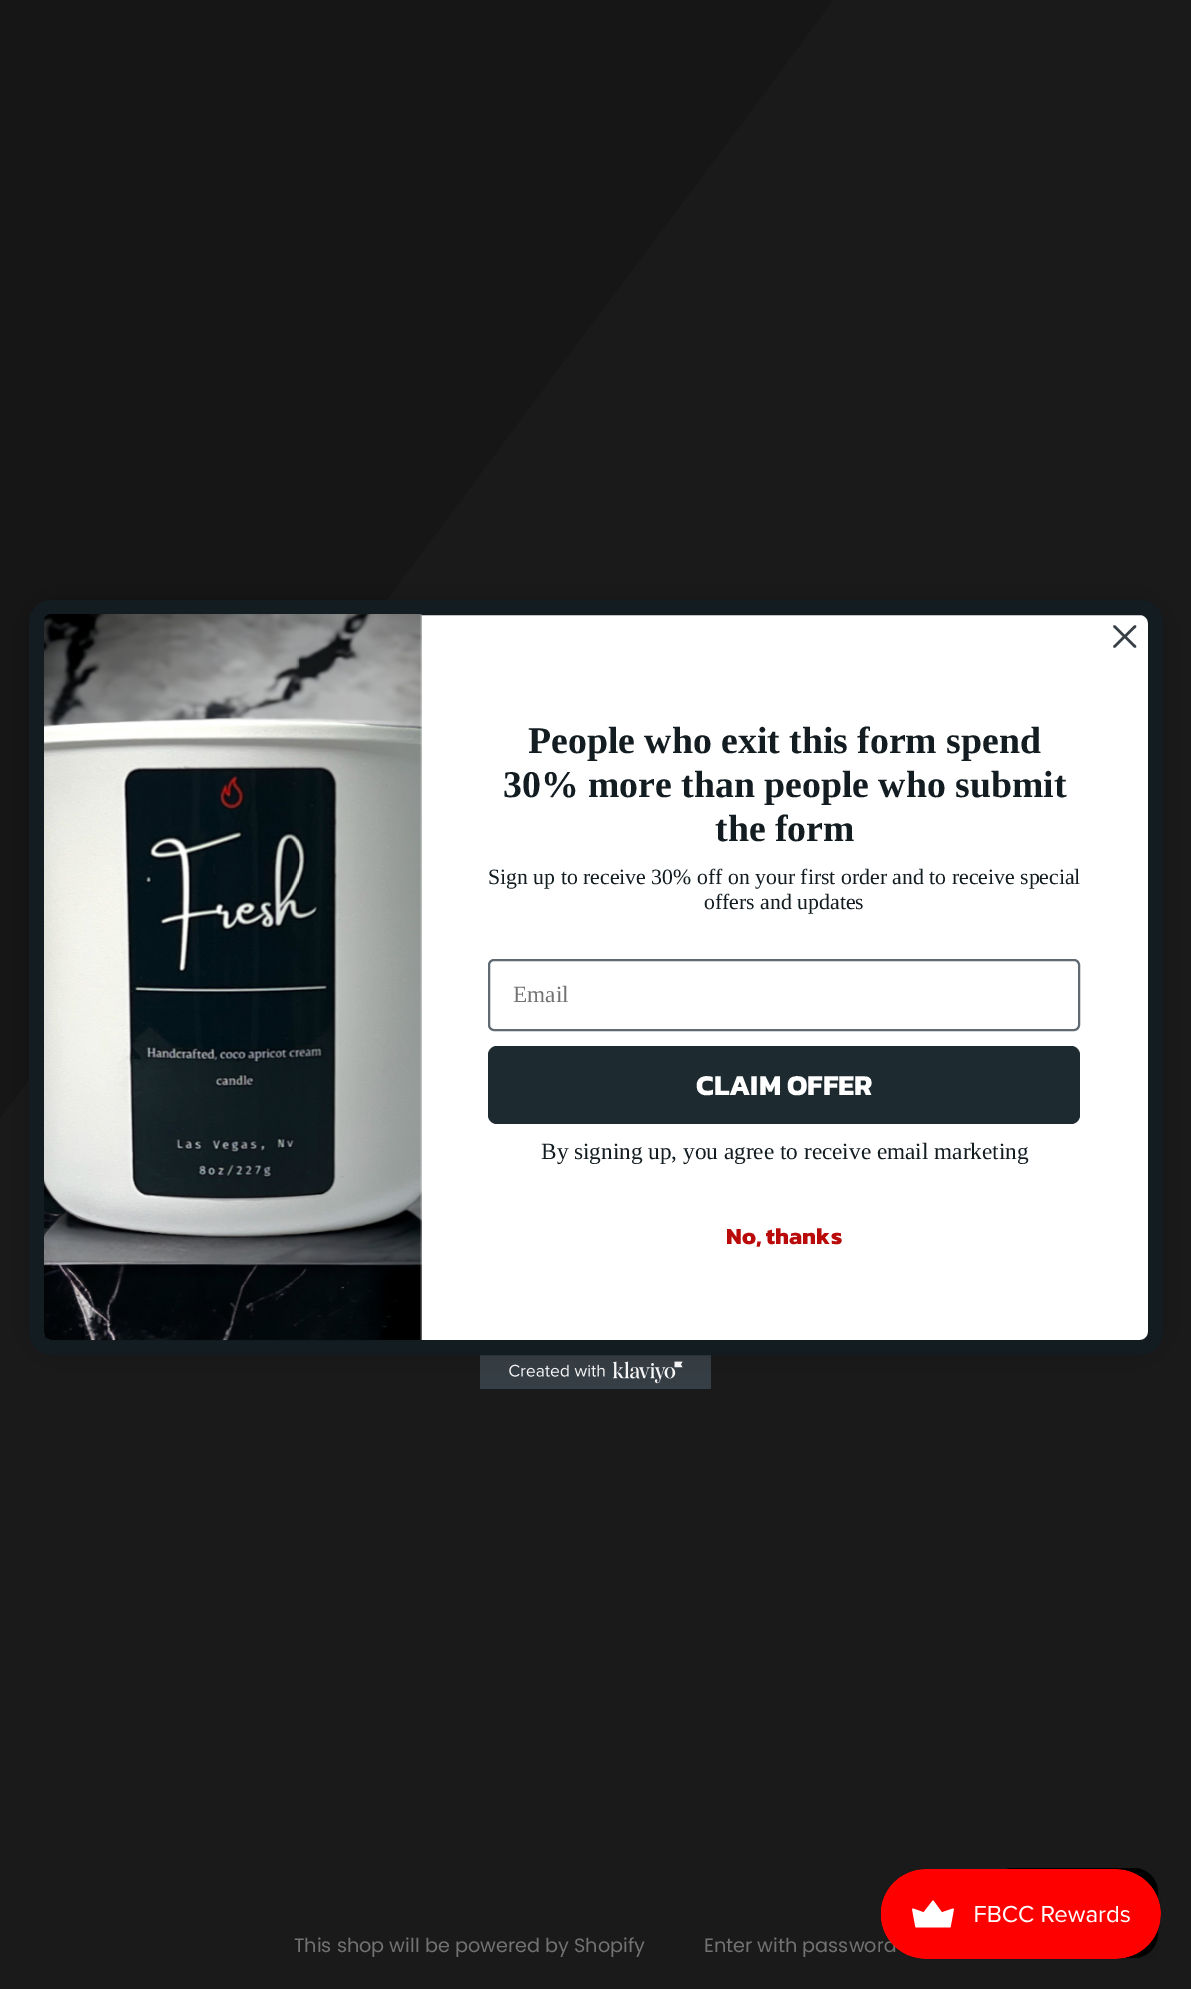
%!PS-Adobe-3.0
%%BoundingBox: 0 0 1191 1989
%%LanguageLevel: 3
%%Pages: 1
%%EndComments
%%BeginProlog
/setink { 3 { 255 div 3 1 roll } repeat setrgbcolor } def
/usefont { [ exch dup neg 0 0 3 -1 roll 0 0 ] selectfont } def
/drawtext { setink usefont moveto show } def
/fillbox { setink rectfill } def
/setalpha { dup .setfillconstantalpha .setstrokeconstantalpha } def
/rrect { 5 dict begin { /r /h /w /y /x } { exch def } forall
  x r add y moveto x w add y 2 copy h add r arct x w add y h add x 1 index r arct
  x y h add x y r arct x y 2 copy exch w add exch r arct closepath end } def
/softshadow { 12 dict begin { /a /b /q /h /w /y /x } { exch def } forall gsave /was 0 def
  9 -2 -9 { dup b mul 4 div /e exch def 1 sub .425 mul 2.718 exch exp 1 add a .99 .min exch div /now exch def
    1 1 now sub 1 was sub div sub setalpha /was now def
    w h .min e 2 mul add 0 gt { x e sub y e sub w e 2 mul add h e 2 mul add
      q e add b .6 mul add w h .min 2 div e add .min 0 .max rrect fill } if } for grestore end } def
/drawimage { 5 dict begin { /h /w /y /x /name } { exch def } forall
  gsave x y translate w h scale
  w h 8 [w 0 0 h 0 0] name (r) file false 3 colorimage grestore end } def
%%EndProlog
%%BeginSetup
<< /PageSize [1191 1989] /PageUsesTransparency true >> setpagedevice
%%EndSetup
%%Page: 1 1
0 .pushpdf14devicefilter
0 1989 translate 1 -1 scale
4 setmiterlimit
0 0 1191 1989 22 22 22 fillbox
26 26 26 setink
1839 1989 moveto -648 1989 lineto 834 0 lineto 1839 0 lineto closepath fill
(assets/img2.rgb) 480 1355 231 34 drawimage
0 0 0 setink
29 600 1134 755 23 22 0.15 softshadow
255 255 255 setink
36.5 607.5 1119 740 15.5 rrect gsave fill grestore
18 28 33 setink
15 setlinewidth
stroke
55 63 71 setink
2.5 setlinewidth
1 setlinecap
1 setlinejoin
1114.5 626.5 moveto 1135 646.5 lineto 1114.5 646.5 moveto 1135 626.5 lineto closepath stroke
(assets/img1.rgb) 44 614 378 727 drawimage
(People who exit this form spend) 528 753 /LiberationSerif-Bold 37.75 18 28 33 drawtext
(30% more than people who submit) 503 797 /LiberationSerif-Bold 37.75 18 28 33 drawtext
(the form) 715 841 /LiberationSerif-Bold 37.75 18 28 33 drawtext
(Sign up to receive 30% off on your first order and to receive special) 488 884 /LiberationSerif-Regular 21.8 18 28 33 drawtext
(offers and updates) 704 909 /LiberationSerif-Regular 21.8 18 28 33 drawtext
96 106 114 setink
2 setlinewidth
0 setlinecap
0 setlinejoin
489 960 590 70 5 rrect stroke
(Email) 513 1002 /LiberationSerif-Regular 23.25 114 114 114 drawtext
29 42 48 setink
488 1046 592 78 9 rrect fill
(CLAIM OFFER) 696 1095 /Kanit-Bold 29 255 255 255 drawtext
(By signing up, you agree to receive email marketing) 541 1159 /LiberationSerif-Regular 23.25 18 28 33 drawtext
(No, thanks) 726 1244 /Kanit-Bold 23.25 186 11 11 drawtext
0 0 0 setink
989 1868 169 90 24 rrect fill
(This shop will be powered by Shopify) 294 1952 /Poppins-Regular 19.25 114 114 114 drawtext
(Enter with password) 704 1952 /Poppins-Regular 19.25 114 114 114 drawtext
(assets/img3.rgb) 880 1869 281 90 drawimage
.poppdf14devicefilter showpage
%%EOF
